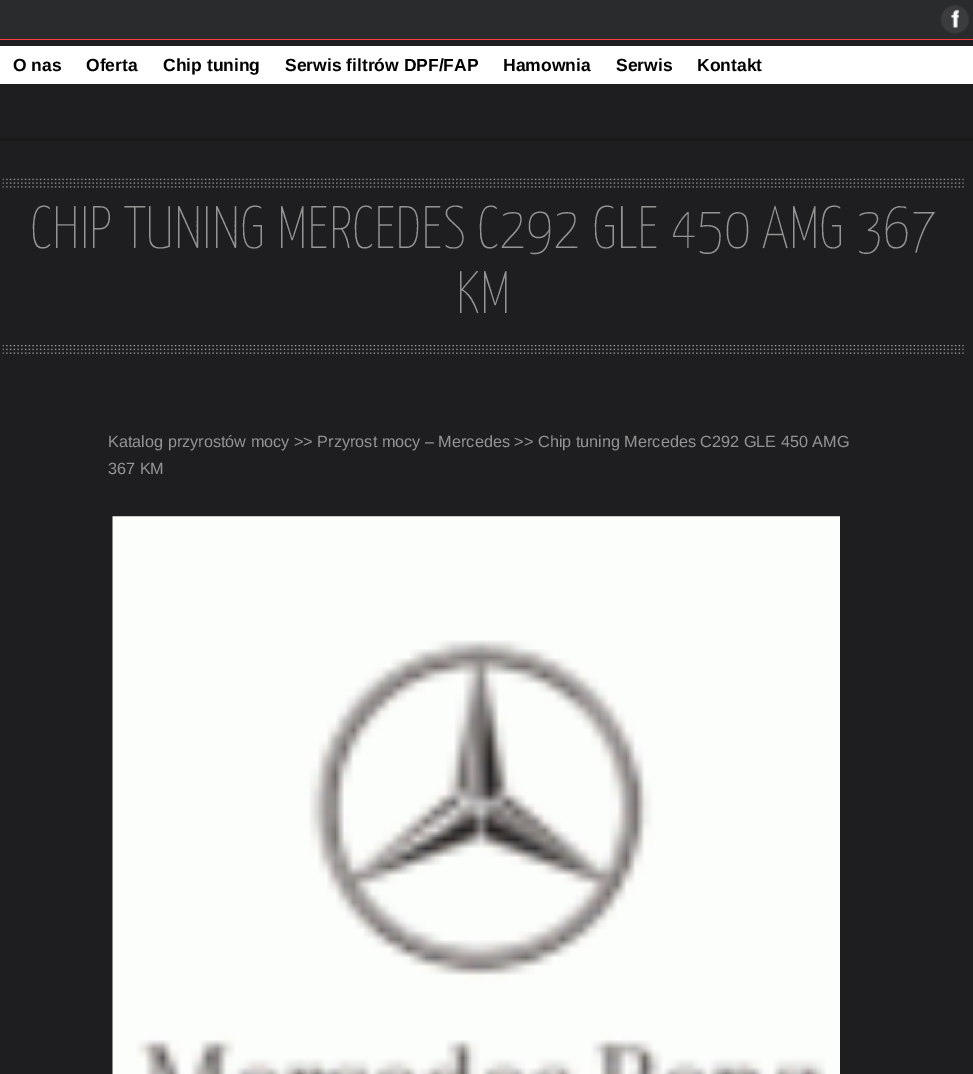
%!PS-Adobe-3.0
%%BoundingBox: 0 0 973 1074
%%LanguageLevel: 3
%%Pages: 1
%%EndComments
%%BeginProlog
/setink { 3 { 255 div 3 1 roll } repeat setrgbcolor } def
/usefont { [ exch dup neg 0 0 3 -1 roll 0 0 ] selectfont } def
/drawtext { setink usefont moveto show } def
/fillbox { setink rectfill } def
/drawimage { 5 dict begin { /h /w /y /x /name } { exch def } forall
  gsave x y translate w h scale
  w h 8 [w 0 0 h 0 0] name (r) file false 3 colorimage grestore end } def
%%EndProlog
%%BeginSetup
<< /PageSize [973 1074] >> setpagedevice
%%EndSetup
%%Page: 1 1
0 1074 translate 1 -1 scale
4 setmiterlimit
0 0 973 1074 30 30 32 fillbox
0 0 973 39 42 43 44 fillbox
0 39 973 1 255 61 61 fillbox
(assets/img1.rgb) 940 5 29 29 drawimage
0 138 973 3 26 26 27 fillbox
0 46 973 38 255 255 255 fillbox
(O nas) 13 71 /LiberationSans-Bold 17.5 0 0 0 drawtext
(Oferta) 86 71 /LiberationSans-Bold 17.5 0 0 0 drawtext
(Chip tuning) 163 71 /LiberationSans-Bold 17.5 0 0 0 drawtext
(Serwis filtrów DPF/FAP) 285 71 /LiberationSans-Bold 17.5 0 0 0 drawtext
(Hamownia) 503 71 /LiberationSans-Bold 17.5 0 0 0 drawtext
(Serwis) 616 71 /LiberationSans-Bold 17.5 0 0 0 drawtext
(Kontakt) 697 71 /LiberationSans-Bold 17.5 0 0 0 drawtext
(assets/img2.rgb) 2 178 962 10 drawimage
(CHIP TUNING MERCEDES C292 GLE 450 AMG 367) 30 248 /YanoneKaffeesatz-ExtraLight 60 148 148 148 drawtext
(KM) 456 313 /YanoneKaffeesatz-ExtraLight 60 148 148 148 drawtext
(assets/img3.rgb) 2 345 962 9 drawimage
(Katalog przyrostów mocy >> Przyrost mocy – Mercedes >> Chip tuning Mercedes C292 GLE 450 AMG) 108 447 /LiberationSans-Regular 16.25 148 148 148 drawtext
(367 KM) 108 474 /LiberationSans-Regular 16.25 148 148 148 drawtext
(assets/img4.rgb) 112 516 728 558 drawimage
showpage
%%EOF
